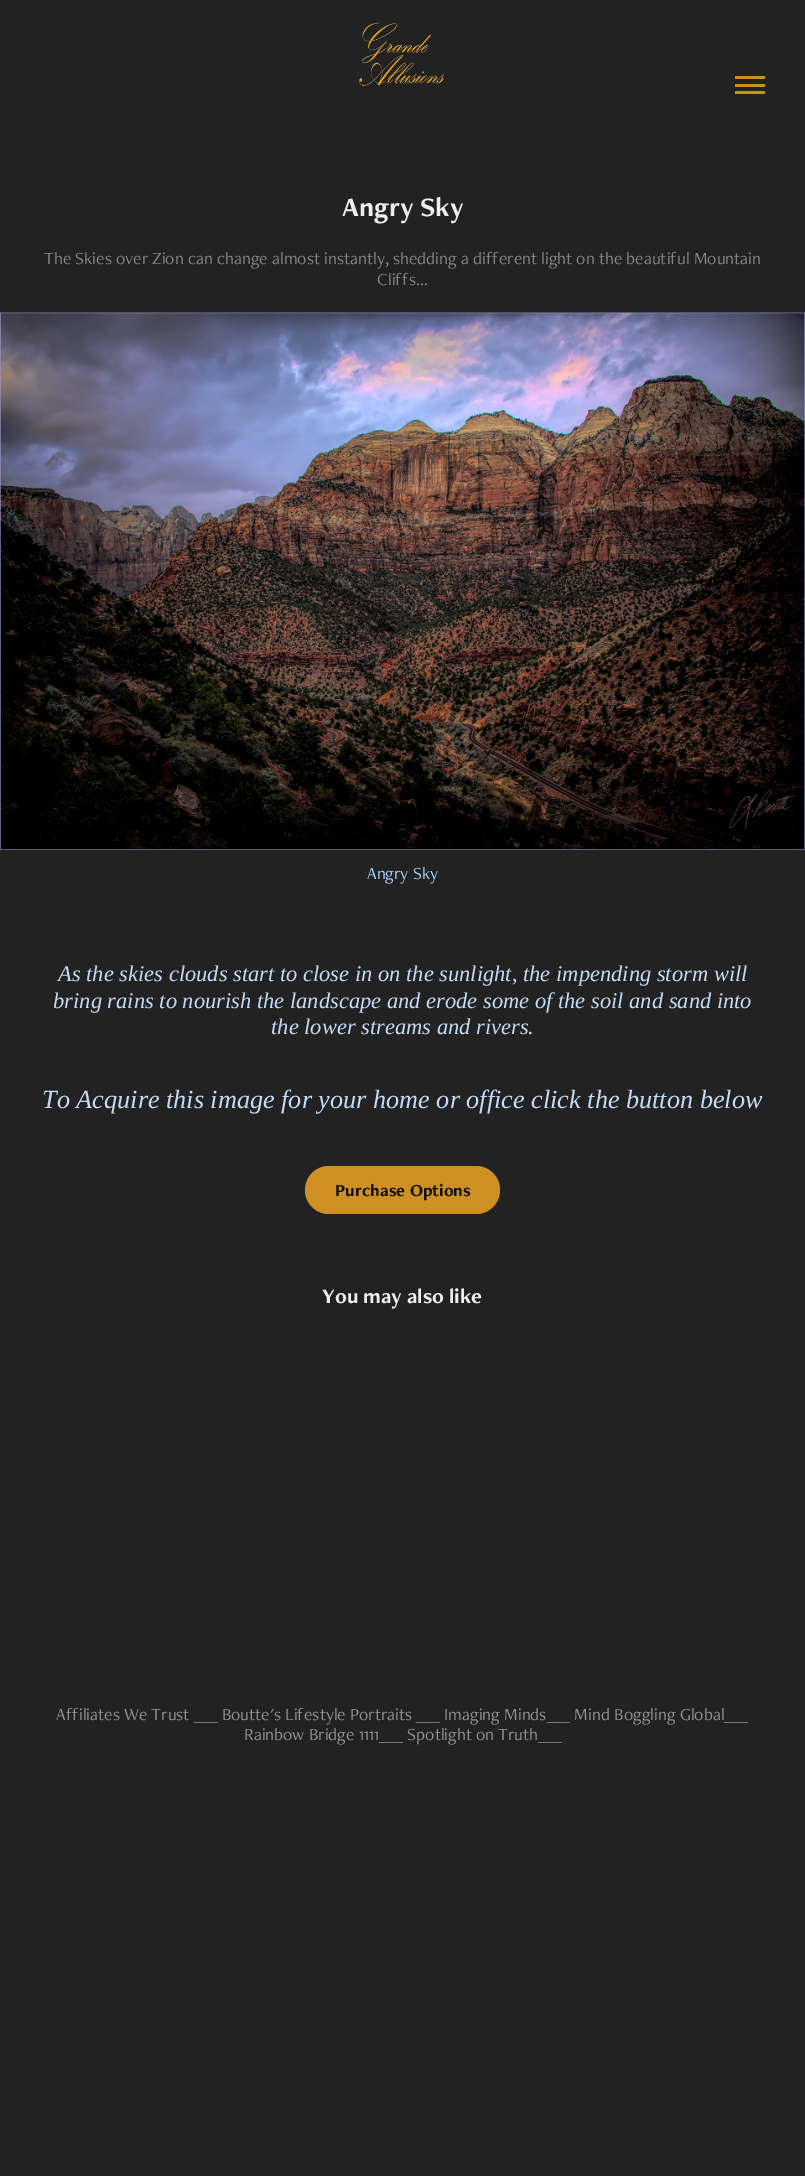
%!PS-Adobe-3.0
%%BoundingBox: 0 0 805 2176
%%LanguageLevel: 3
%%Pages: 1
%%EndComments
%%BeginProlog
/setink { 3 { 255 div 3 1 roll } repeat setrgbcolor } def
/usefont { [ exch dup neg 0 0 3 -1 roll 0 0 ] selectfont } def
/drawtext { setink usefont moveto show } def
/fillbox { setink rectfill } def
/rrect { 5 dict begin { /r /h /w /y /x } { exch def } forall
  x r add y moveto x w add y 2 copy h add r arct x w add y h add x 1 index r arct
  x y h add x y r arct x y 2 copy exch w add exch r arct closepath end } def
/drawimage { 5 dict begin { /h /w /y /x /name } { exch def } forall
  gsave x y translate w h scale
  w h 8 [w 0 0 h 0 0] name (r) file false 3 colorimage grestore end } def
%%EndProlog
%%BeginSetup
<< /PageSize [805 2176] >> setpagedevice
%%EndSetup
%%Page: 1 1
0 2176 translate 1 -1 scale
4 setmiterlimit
0 0 805 2176 34 34 34 fillbox
(assets/img1.rgb) 359 22 86 64 drawimage
735 76 30 3 206 144 19 fillbox
735 84 30 3 206 144 19 fillbox
735 91 30 3 206 144 19 fillbox
(Angry Sky) 342 216 /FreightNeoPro-Bold 27.5 238 238 238 drawtext
(The Skies over Zion can change almost instantly, shedding a different light on the beautiful Mountain) 44 264 /FreightNeoPro-Regular 17.5 136 136 136 drawtext
(Cliffs...) 377 285 /FreightNeoPro-Regular 17.5 136 136 136 drawtext
(assets/img2.rgb) 0 312 805 538 drawimage
(Angry Sky) 367 879 /FreightNeoPro-Regular 17.5 173 213 254 drawtext
(As the skies clouds start to close in on the sunlight, the impending storm will) 58 981 /LiberationSerif-Italic 22.5 195 219 244 drawtext
(bring rains to nourish the landscape and erode some of the soil and sand into) 53 1008 /LiberationSerif-Italic 22.5 195 219 244 drawtext
(the lower streams and rivers.) 271 1034 /LiberationSerif-Italic 22.5 195 219 244 drawtext
(To Acquire this image for your home or office click the button below) 42 1108 /LiberationSerif-Italic 26.25 195 219 244 drawtext
206 144 35 setink
305 1166 195 48 24 rrect fill
(Purchase Options) 335 1196 /FreightNeoPro-Bold 17.5 17 17 17 drawtext
(You may also like) 322 1303 /FreightNeoPro-Bold 21.25 238 238 238 drawtext
(Affiliates We Trust ___ Boutte's Lifestyle Portraits ___ Imaging Minds___ Mind Boggling Global___) 56 1720 /FreightNeoPro-Regular 17.5 150 147 147 drawtext
(Rainbow Bridge 1111___ Spotlight on Truth___) 244 1740 /FreightNeoPro-Regular 17.5 150 147 147 drawtext
showpage
%%EOF
